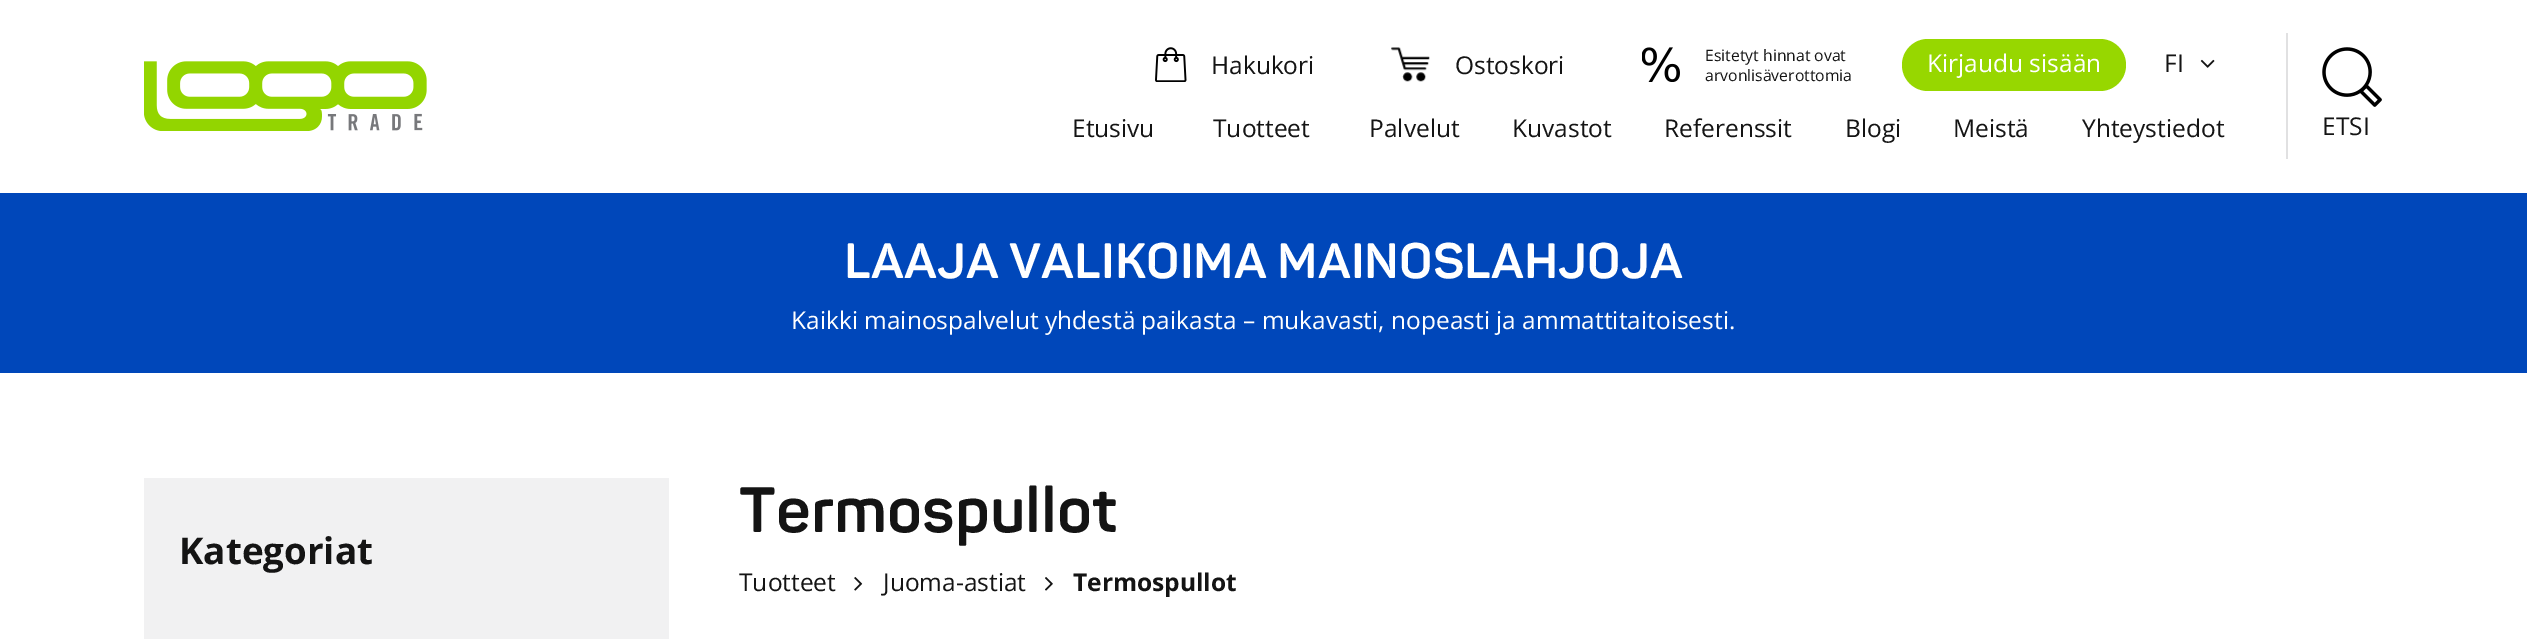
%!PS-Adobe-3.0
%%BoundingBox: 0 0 2527 639
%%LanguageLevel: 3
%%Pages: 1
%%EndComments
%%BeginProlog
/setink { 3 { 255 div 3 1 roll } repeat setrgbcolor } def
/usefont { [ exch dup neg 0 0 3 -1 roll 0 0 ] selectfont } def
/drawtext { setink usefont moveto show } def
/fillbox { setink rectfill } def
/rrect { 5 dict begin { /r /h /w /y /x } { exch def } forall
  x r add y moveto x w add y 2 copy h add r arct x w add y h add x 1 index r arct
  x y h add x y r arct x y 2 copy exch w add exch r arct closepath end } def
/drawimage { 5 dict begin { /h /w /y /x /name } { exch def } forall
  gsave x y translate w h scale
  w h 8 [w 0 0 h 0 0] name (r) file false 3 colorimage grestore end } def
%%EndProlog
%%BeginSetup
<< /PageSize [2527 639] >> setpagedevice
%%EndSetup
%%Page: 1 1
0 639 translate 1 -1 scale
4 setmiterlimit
0 0 2527 639 255 255 255 fillbox
(assets/img1.rgb) 144 61 283 70 drawimage
(assets/img2.rgb) 1155 47 32 35 drawimage
(Hakukori) 1211 74 /OpenSans-Regular 24.5 20 20 20 drawtext
(assets/img3.rgb) 1391 47 39 35 drawimage
(Ostoskori) 1455 74 /OpenSans-Regular 24.5 20 20 20 drawtext
(assets/img4.rgb) 1642 47 38 35 drawimage
(Esitetyt hinnat ovat) 1705 61 /OpenSans-Regular 15.75 20 20 20 drawtext
(arvonlisäverottomia) 1705 81 /OpenSans-Regular 15.75 20 20 20 drawtext
151 215 0 setink
1902 39 224 52 26 rrect fill
(Kirjaudu sisään) 1927 72 /OpenSans-Regular 24.5 255 255 255 drawtext
(FI) 2164 72 /OpenSans-Regular 24.5 20 20 20 drawtext
(assets/img5.rgb) 2200 59 15 9 drawimage
(Etusivu) 1072 137 /OpenSans-Regular 24.5 20 20 20 drawtext
(Tuotteet) 1213 137 /OpenSans-Regular 24.5 20 20 20 drawtext
(Palvelut) 1369 137 /OpenSans-Regular 24.5 20 20 20 drawtext
(Kuvastot) 1512 137 /OpenSans-Regular 24.5 20 20 20 drawtext
(Referenssit) 1664 137 /OpenSans-Regular 24.5 20 20 20 drawtext
(Blogi) 1845 137 /OpenSans-Regular 24.5 20 20 20 drawtext
(Meistä) 1953 137 /OpenSans-Regular 24.5 20 20 20 drawtext
(Yhteystiedot) 2082 137 /OpenSans-Regular 24.5 20 20 20 drawtext
2286 33 2 126 225 225 226 fillbox
(assets/img6.rgb) 2322 47 60 60 drawimage
(ETSI) 2322 135 /OpenSans-Regular 24.5 20 20 20 drawtext
0 193 2527 180 0 71 186 fillbox
(LAAJA VALIKOIMA MAINOSLAHJOJA) 844 278 /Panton-Bold 49 255 255 255 drawtext
(Kaikki mainospalvelut yhdestä paikasta – mukavasti, nopeasti ja ammattitaitoisesti.) 791 329 /OpenSans-Regular 24.5 255 255 255 drawtext
144 478 525 161 241 241 242 fillbox
(Kategoriat) 179 564 /OpenSans-Bold 36.75 20 20 20 drawtext
(Termospullot) 739 532 /Panton-Bold 63 20 20 20 drawtext
(Tuotteet) 739 591 /OpenSans-Regular 24.5 20 20 20 drawtext
(assets/img7.rgb) 854 577 9 14 drawimage
(Juoma-astiat) 883 591 /OpenSans-Regular 24.5 20 20 20 drawtext
(assets/img8.rgb) 1045 577 8 14 drawimage
(Termospullot) 1073 591 /OpenSans-Bold 24.5 20 20 20 drawtext
showpage
%%EOF
